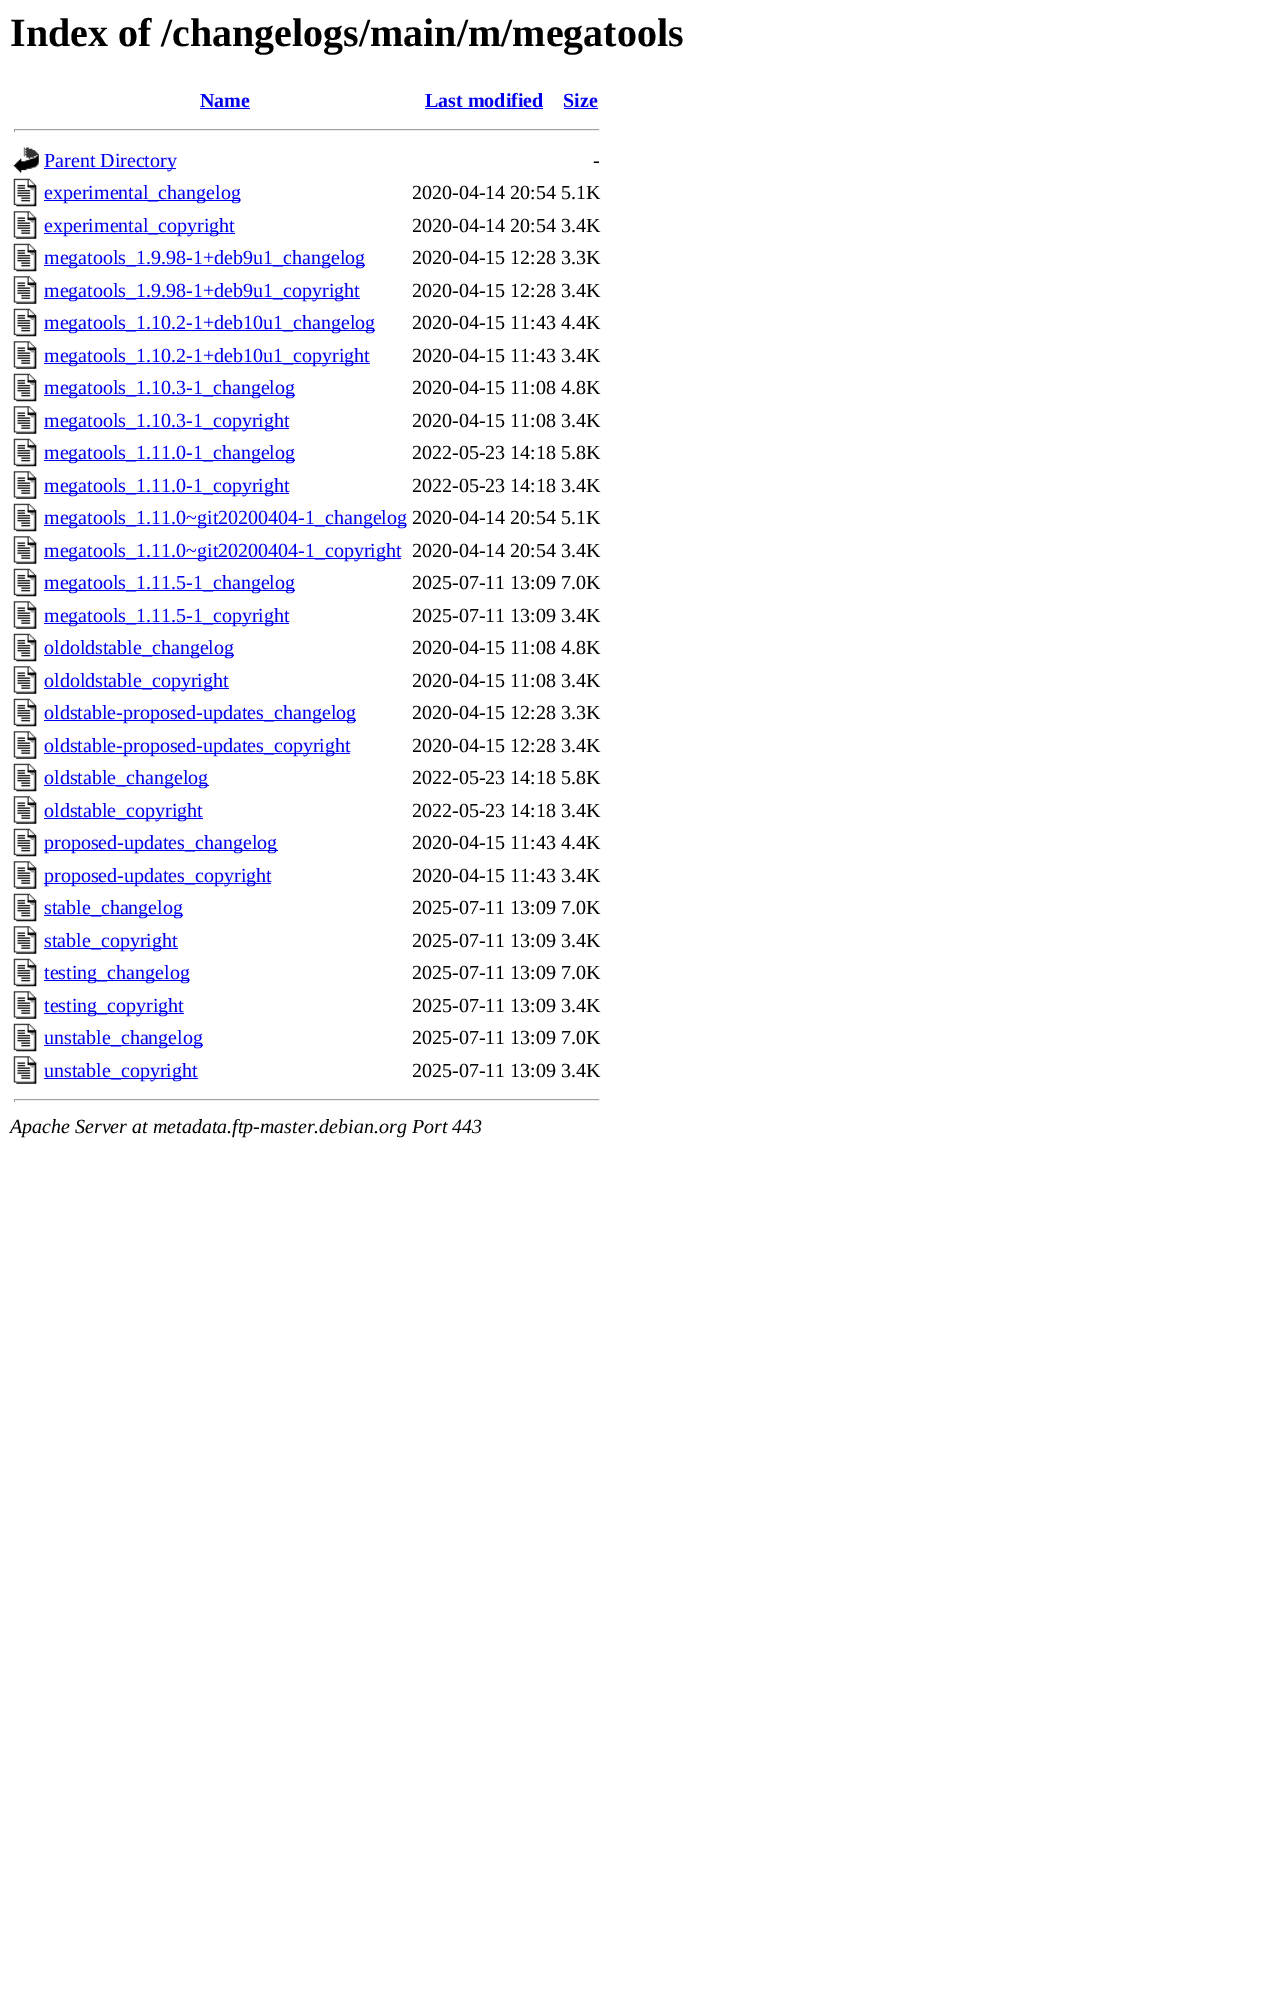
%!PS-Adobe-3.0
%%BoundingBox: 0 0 1270 1997
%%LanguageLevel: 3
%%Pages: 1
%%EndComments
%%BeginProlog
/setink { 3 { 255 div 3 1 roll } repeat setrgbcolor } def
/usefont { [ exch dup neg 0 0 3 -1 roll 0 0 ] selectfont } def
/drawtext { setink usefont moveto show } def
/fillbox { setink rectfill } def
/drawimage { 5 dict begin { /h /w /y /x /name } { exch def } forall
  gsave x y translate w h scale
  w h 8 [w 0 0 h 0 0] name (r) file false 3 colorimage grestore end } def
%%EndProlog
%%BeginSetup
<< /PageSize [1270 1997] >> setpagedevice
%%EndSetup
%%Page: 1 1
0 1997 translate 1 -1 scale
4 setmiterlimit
0 0 1270 1997 255 255 255 fillbox
(Index of /changelogs/main/m/megatools) 10 46 /LiberationSerif-Bold 40 0 0 0 drawtext
(Name) 200 107 /LiberationSerif-Bold 20 0 0 238 drawtext
200 108 50 1 0 0 238 fillbox
(Last modified) 425 107 /LiberationSerif-Bold 20 0 0 238 drawtext
425 108 118 1 0 0 238 fillbox
(Size) 563 107 /LiberationSerif-Bold 20 0 0 238 drawtext
564 108 34 1 0 0 238 fillbox
14 129 586 1 159 159 159 fillbox
599 129 1 3 238 238 238 fillbox
14 130 586 1 238 238 238 fillbox
14 129 1 3 159 159 159 fillbox
(assets/img1.rgb) 13 147 26 26 drawimage
44 168 132 1 0 0 238 fillbox
(Parent Directory) 44 167 /LiberationSerif-Regular 20 0 0 238 drawtext
(-) 593 167 /LiberationSerif-Regular 20 0 0 0 drawtext
(assets/img2.rgb) 13 178 24 29 drawimage
44 200 196 1 0 0 238 fillbox
(experimental_changelog) 44 199 /LiberationSerif-Regular 20 0 0 238 drawtext
(2020-04-14 20:54 5.1K) 412 199 /LiberationSerif-Regular 20 0 0 0 drawtext
(assets/img3.rgb) 13 211 24 28 drawimage
44 233 191 1 0 0 238 fillbox
(experimental_copyright) 44 232 /LiberationSerif-Regular 20 0 0 238 drawtext
(2020-04-14 20:54 3.4K) 412 232 /LiberationSerif-Regular 20 0 0 0 drawtext
(assets/img2.rgb) 13 243 24 29 drawimage
44 265 321 1 0 0 238 fillbox
(megatools_1.9.98-1+deb9u1_changelog) 44 264 /LiberationSerif-Regular 20 0 0 238 drawtext
(2020-04-15 12:28 3.3K) 412 264 /LiberationSerif-Regular 20 0 0 0 drawtext
(assets/img4.rgb) 13 276 24 28 drawimage
44 298 316 1 0 0 238 fillbox
(megatools_1.9.98-1+deb9u1_copyright) 44 297 /LiberationSerif-Regular 20 0 0 238 drawtext
(2020-04-15 12:28 3.4K) 412 297 /LiberationSerif-Regular 20 0 0 0 drawtext
(assets/img2.rgb) 13 308 24 29 drawimage
44 330 331 1 0 0 238 fillbox
(megatools_1.10.2-1+deb10u1_changelog) 44 329 /LiberationSerif-Regular 20 0 0 238 drawtext
(2020-04-15 11:43 4.4K) 412 329 /LiberationSerif-Regular 20 0 0 0 drawtext
(assets/img3.rgb) 13 341 24 28 drawimage
44 363 326 1 0 0 238 fillbox
(megatools_1.10.2-1+deb10u1_copyright) 44 362 /LiberationSerif-Regular 20 0 0 238 drawtext
(2020-04-15 11:43 3.4K) 412 362 /LiberationSerif-Regular 20 0 0 0 drawtext
(assets/img2.rgb) 13 373 24 29 drawimage
44 395 251 1 0 0 238 fillbox
(megatools_1.10.3-1_changelog) 44 394 /LiberationSerif-Regular 20 0 0 238 drawtext
(2020-04-15 11:08 4.8K) 412 394 /LiberationSerif-Regular 20 0 0 0 drawtext
(assets/img3.rgb) 13 406 24 28 drawimage
44 428 245 1 0 0 238 fillbox
(megatools_1.10.3-1_copyright) 44 427 /LiberationSerif-Regular 20 0 0 238 drawtext
(2020-04-15 11:08 3.4K) 412 427 /LiberationSerif-Regular 20 0 0 0 drawtext
(assets/img2.rgb) 13 438 24 29 drawimage
44 460 251 1 0 0 238 fillbox
(megatools_1.11.0-1_changelog) 44 459 /LiberationSerif-Regular 20 0 0 238 drawtext
(2022-05-23 14:18 5.8K) 412 459 /LiberationSerif-Regular 20 0 0 0 drawtext
(assets/img3.rgb) 13 471 24 28 drawimage
44 493 245 1 0 0 238 fillbox
(megatools_1.11.0-1_copyright) 44 492 /LiberationSerif-Regular 20 0 0 238 drawtext
(2022-05-23 14:18 3.4K) 412 492 /LiberationSerif-Regular 20 0 0 0 drawtext
(assets/img2.rgb) 13 503 24 29 drawimage
44 525 362 1 0 0 238 fillbox
(megatools_1.11.0~git20200404-1_changelog) 44 524 /LiberationSerif-Regular 20 0 0 238 drawtext
(2020-04-14 20:54 5.1K) 412 524 /LiberationSerif-Regular 20 0 0 0 drawtext
(assets/img3.rgb) 13 536 24 28 drawimage
44 558 357 1 0 0 238 fillbox
(megatools_1.11.0~git20200404-1_copyright) 44 557 /LiberationSerif-Regular 20 0 0 238 drawtext
(2020-04-14 20:54 3.4K) 412 557 /LiberationSerif-Regular 20 0 0 0 drawtext
(assets/img2.rgb) 13 568 24 29 drawimage
44 590 251 1 0 0 238 fillbox
(megatools_1.11.5-1_changelog) 44 589 /LiberationSerif-Regular 20 0 0 238 drawtext
(2025-07-11 13:09 7.0K) 412 589 /LiberationSerif-Regular 20 0 0 0 drawtext
(assets/img3.rgb) 13 601 24 28 drawimage
44 623 245 1 0 0 238 fillbox
(megatools_1.11.5-1_copyright) 44 622 /LiberationSerif-Regular 20 0 0 238 drawtext
(2025-07-11 13:09 3.4K) 412 622 /LiberationSerif-Regular 20 0 0 0 drawtext
(assets/img2.rgb) 13 633 24 29 drawimage
44 655 190 1 0 0 238 fillbox
(oldoldstable_changelog) 44 654 /LiberationSerif-Regular 20 0 0 238 drawtext
(2020-04-15 11:08 4.8K) 412 654 /LiberationSerif-Regular 20 0 0 0 drawtext
(assets/img3.rgb) 13 666 24 28 drawimage
44 688 185 1 0 0 238 fillbox
(oldoldstable_copyright) 44 687 /LiberationSerif-Regular 20 0 0 238 drawtext
(2020-04-15 11:08 3.4K) 412 687 /LiberationSerif-Regular 20 0 0 0 drawtext
(assets/img2.rgb) 13 698 24 29 drawimage
44 720 312 1 0 0 238 fillbox
(oldstable-proposed-updates_changelog) 44 719 /LiberationSerif-Regular 20 0 0 238 drawtext
(2020-04-15 12:28 3.3K) 412 719 /LiberationSerif-Regular 20 0 0 0 drawtext
(assets/img3.rgb) 13 731 24 28 drawimage
44 753 306 1 0 0 238 fillbox
(oldstable-proposed-updates_copyright) 44 752 /LiberationSerif-Regular 20 0 0 238 drawtext
(2020-04-15 12:28 3.4K) 412 752 /LiberationSerif-Regular 20 0 0 0 drawtext
(assets/img2.rgb) 13 763 24 29 drawimage
44 785 165 1 0 0 238 fillbox
(oldstable_changelog) 44 784 /LiberationSerif-Regular 20 0 0 238 drawtext
(2022-05-23 14:18 5.8K) 412 784 /LiberationSerif-Regular 20 0 0 0 drawtext
(assets/img3.rgb) 13 796 24 28 drawimage
44 818 159 1 0 0 238 fillbox
(oldstable_copyright) 44 817 /LiberationSerif-Regular 20 0 0 238 drawtext
(2022-05-23 14:18 3.4K) 412 817 /LiberationSerif-Regular 20 0 0 0 drawtext
(assets/img2.rgb) 13 828 24 29 drawimage
44 850 234 1 0 0 238 fillbox
(proposed-updates_changelog) 44 849 /LiberationSerif-Regular 20 0 0 238 drawtext
(2020-04-15 11:43 4.4K) 412 849 /LiberationSerif-Regular 20 0 0 0 drawtext
(assets/img3.rgb) 13 861 24 28 drawimage
44 883 227 1 0 0 238 fillbox
(proposed-updates_copyright) 44 882 /LiberationSerif-Regular 20 0 0 238 drawtext
(2020-04-15 11:43 3.4K) 412 882 /LiberationSerif-Regular 20 0 0 0 drawtext
(assets/img2.rgb) 13 893 24 29 drawimage
44 915 139 1 0 0 238 fillbox
(stable_changelog) 44 914 /LiberationSerif-Regular 20 0 0 238 drawtext
(2025-07-11 13:09 7.0K) 412 914 /LiberationSerif-Regular 20 0 0 0 drawtext
(assets/img3.rgb) 13 926 24 28 drawimage
44 948 134 1 0 0 238 fillbox
(stable_copyright) 44 947 /LiberationSerif-Regular 20 0 0 238 drawtext
(2025-07-11 13:09 3.4K) 412 947 /LiberationSerif-Regular 20 0 0 0 drawtext
(assets/img2.rgb) 13 958 24 29 drawimage
44 980 145 1 0 0 238 fillbox
(testing_changelog) 44 979 /LiberationSerif-Regular 20 0 0 238 drawtext
(2025-07-11 13:09 7.0K) 412 979 /LiberationSerif-Regular 20 0 0 0 drawtext
(assets/img3.rgb) 13 991 24 28 drawimage
44 1013 140 1 0 0 238 fillbox
(testing_copyright) 44 1012 /LiberationSerif-Regular 20 0 0 238 drawtext
(2025-07-11 13:09 3.4K) 412 1012 /LiberationSerif-Regular 20 0 0 0 drawtext
(assets/img5.rgb) 13 1023 24 29 drawimage
44 1045 159 1 0 0 238 fillbox
(unstable_changelog) 44 1044 /LiberationSerif-Regular 20 0 0 238 drawtext
(2025-07-11 13:09 7.0K) 412 1044 /LiberationSerif-Regular 20 0 0 0 drawtext
(assets/img3.rgb) 13 1056 24 28 drawimage
44 1078 154 1 0 0 238 fillbox
(unstable_copyright) 44 1077 /LiberationSerif-Regular 20 0 0 238 drawtext
(2025-07-11 13:09 3.4K) 412 1077 /LiberationSerif-Regular 20 0 0 0 drawtext
14 1099 586 1 159 159 159 fillbox
599 1099 1 3 238 238 238 fillbox
14 1100 586 1 238 238 238 fillbox
14 1099 1 3 159 159 159 fillbox
(Apache Server at metadata.ftp-master.debian.org Port 443) 10 1133 /LiberationSerif-Italic 20 0 0 0 drawtext
showpage
%%EOF
